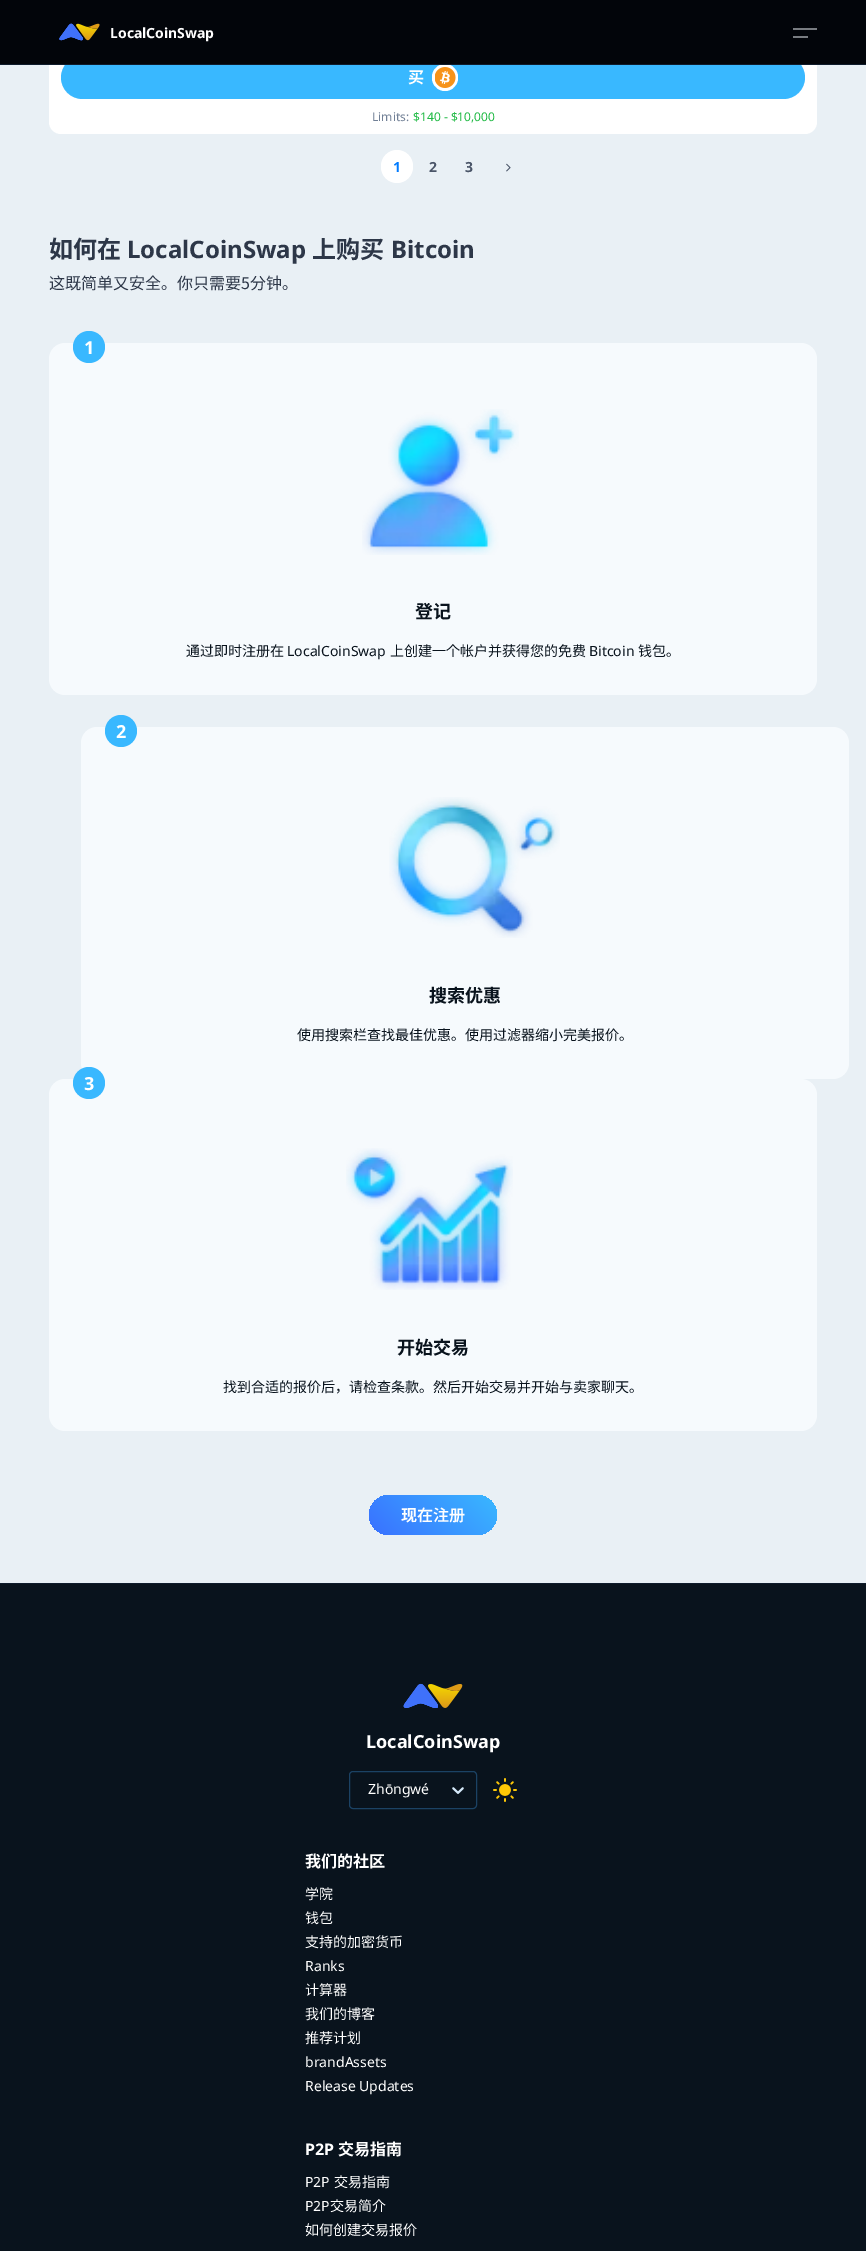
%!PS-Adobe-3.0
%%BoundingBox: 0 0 866 2251
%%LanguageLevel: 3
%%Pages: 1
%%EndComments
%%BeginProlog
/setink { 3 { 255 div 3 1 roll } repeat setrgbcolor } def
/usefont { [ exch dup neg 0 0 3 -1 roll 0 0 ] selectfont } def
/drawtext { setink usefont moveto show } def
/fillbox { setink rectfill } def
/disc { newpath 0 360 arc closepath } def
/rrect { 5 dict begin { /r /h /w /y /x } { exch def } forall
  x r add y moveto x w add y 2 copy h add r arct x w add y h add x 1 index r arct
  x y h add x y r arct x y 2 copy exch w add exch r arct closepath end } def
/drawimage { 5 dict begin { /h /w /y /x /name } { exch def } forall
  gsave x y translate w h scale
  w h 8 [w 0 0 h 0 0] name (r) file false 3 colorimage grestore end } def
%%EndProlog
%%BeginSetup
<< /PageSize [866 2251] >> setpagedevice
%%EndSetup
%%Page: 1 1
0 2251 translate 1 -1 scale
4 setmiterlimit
0 0 866 2251 233 240 245 fillbox
255 255 255 setink
49 -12 768 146 12 rrect fill
57 184 255 setink
61 56 744 43 21.5 rrect fill
0 0 866 64 2 5 10 fillbox
255 255 255 setink
432 64 26 27 13 rrect fill
0 64 866 1 15 28 44 fillbox
(assets/img1.rgb) 59 23 41 18 drawimage
(LocalCoinSwap) 110 38 /NotoSans-Bold 14 255 255 255 drawtext
(assets/img2.rgb) 793 28 24 10 drawimage
(买) 408 83 /NotoSansCJKJP-Bold 16 255 255 255 drawtext
(assets/img3.rgb) 435 67 21 21 drawimage
(Limits:) 372 121 /NotoSans-Regular 12 113 128 150 drawtext
($140 - $10,000) 413 121 /NotoSans-Regular 12 33 186 69 drawtext
255 255 255 setink
381 150 32 33 16 rrect fill
(1) 393 172 /NotoSans-Bold 14 0 123 255 drawtext
(2) 429 172 /NotoSans-Bold 14 74 85 104 drawtext
(3) 465 172 /NotoSans-Bold 14 74 85 104 drawtext
(assets/img4.rgb) 506 163 5 9 drawimage
(如何在) 49 258 /NotoSansJP-Bold 24 45 55 72 drawtext
(LocalCoinSwap) 127 258 /NotoSans-Bold 24 45 55 72 drawtext
(上) 312 258 /NotoSansJP-Bold 24 45 55 72 drawtext
(购买) 336 258 /NotoSansCJKJP-Bold 24 45 55 72 drawtext
(Bitcoin) 391 258 /NotoSans-Bold 24 45 55 72 drawtext
(这) 49 289 /NotoSansCJKJP-Regular 16 45 55 72 drawtext
(既) 65 289 /NotoSansJP-Regular 16 45 55 72 drawtext
(简单) 81 289 /NotoSansCJKJP-Regular 16 45 55 72 drawtext
(又安全。你只需要5分) 113 289 /NotoSansJP-Regular 16 45 55 72 drawtext
(钟) 266 289 /NotoSansCJKJP-Regular 16 45 55 72 drawtext
(。) 282 289 /NotoSansJP-Regular 16 45 55 72 drawtext
246 250 253 setink
49 343 768 352 16 rrect fill
57 184 255 setink
89 347 16 disc fill
(1) 84 354 /NotoSans-Bold 18 255 255 255 drawtext
(assets/img5.rgb) 362 409 157 146 drawimage
(登) 415 618 /NotoSansJP-Bold 18 9 19 29 drawtext
(记) 433 618 /NotoSansCJKJP-Bold 18 9 19 29 drawtext
(通) 186 656 /NotoSansJP-Regular 14 9 19 29 drawtext
(过) 200 656 /NotoSansCJKJP-Regular 14 9 19 29 drawtext
(即) 214 656 /NotoSansJP-Regular 14 9 19 29 drawtext
(时) 228 656 /NotoSansCJKJP-Regular 14 9 19 29 drawtext
(注册在) 242 656 /NotoSansJP-Regular 14 9 19 29 drawtext
(LocalCoinSwap) 287 656 /NotoSans-Regular 14 9 19 29 drawtext
(上) 390 656 /NotoSansJP-Regular 14 9 19 29 drawtext
(创) 404 656 /NotoSansCJKJP-Regular 14 9 19 29 drawtext
(建一个) 418 656 /NotoSansJP-Regular 14 9 19 29 drawtext
(帐户) 460 656 /NotoSansCJKJP-Regular 14 9 19 29 drawtext
(并) 488 656 /NotoSansJP-Regular 14 9 19 29 drawtext
(获) 502 656 /NotoSansCJKJP-Regular 14 9 19 29 drawtext
(得您的免) 516 656 /NotoSansJP-Regular 14 9 19 29 drawtext
(费) 572 656 /NotoSansCJKJP-Regular 14 9 19 29 drawtext
(Bitcoin) 589 656 /NotoSans-Regular 14 9 19 29 drawtext
(钱) 638 656 /NotoSansCJKJP-Regular 14 9 19 29 drawtext
(包。) 652 656 /NotoSansJP-Regular 14 9 19 29 drawtext
246 250 253 setink
81 727 768 352 16 rrect fill
57 184 255 setink
121 731 16 disc fill
(2) 116 738 /NotoSans-Bold 18 255 255 255 drawtext
(assets/img6.rgb) 389 797 171 141 drawimage
(搜索) 429 1002 /NotoSansJP-Bold 18 9 19 29 drawtext
(优) 465 1002 /NotoSansCJKJP-Bold 18 9 19 29 drawtext
(惠) 483 1002 /NotoSansJP-Bold 18 9 19 29 drawtext
(使用搜索) 297 1040 /NotoSansJP-Regular 14 9 19 29 drawtext
(栏查) 353 1040 /NotoSansCJKJP-Regular 14 9 19 29 drawtext
(找最佳) 381 1040 /NotoSansJP-Regular 14 9 19 29 drawtext
(优) 423 1040 /NotoSansCJKJP-Regular 14 9 19 29 drawtext
(惠。使用) 437 1040 /NotoSansJP-Regular 14 9 19 29 drawtext
(过滤) 493 1040 /NotoSansCJKJP-Regular 14 9 19 29 drawtext
(器) 521 1040 /NotoSansJP-Regular 14 9 19 29 drawtext
(缩) 535 1040 /NotoSansCJKJP-Regular 14 9 19 29 drawtext
(小完美) 549 1040 /NotoSansJP-Regular 14 9 19 29 drawtext
(报) 591 1040 /NotoSansCJKJP-Regular 14 9 19 29 drawtext
(价。) 605 1040 /NotoSansJP-Regular 14 9 19 29 drawtext
246 250 253 setink
49 1079 768 352 16 rrect fill
57 184 255 setink
89 1083 16 disc fill
(3) 84 1090 /NotoSans-Bold 18 255 255 255 drawtext
(assets/img7.rgb) 346 1148 167 142 drawimage
(开始交易) 397 1354 /NotoSansJP-Bold 18 9 19 29 drawtext
(找到合适的) 223 1392 /NotoSansJP-Regular 14 9 19 29 drawtext
(报) 293 1392 /NotoSansCJKJP-Regular 14 9 19 29 drawtext
(价后，) 307 1392 /NotoSansJP-Regular 14 9 19 29 drawtext
(请检查) 349 1392 /NotoSansCJKJP-Regular 14 9 19 29 drawtext
(条款。然后开始交易并开始与) 391 1392 /NotoSansJP-Regular 14 9 19 29 drawtext
(卖) 573 1392 /NotoSansCJKJP-Regular 14 9 19 29 drawtext
(家聊天。) 587 1392 /NotoSansJP-Regular 14 9 19 29 drawtext
gsave 369 1495 128 40 20 rrect clip newpath
<< /ShadingType 2 /ColorSpace /DeviceRGB /Coords [475 1473 391 1557] /Extend [true true] /Function << /FunctionType 2 /Domain [0 1] /C0 [0.224 0.722 1] /C1 [0.227 0.439 1] /N 1 >> >> shfill grestore
(现) 401 1521 /NotoSansCJKJP-Bold 16 255 255 255 drawtext
(在注册) 417 1521 /NotoSansJP-SemiBold 16 255 255 255 drawtext
0 1584 866 667 9 19 29 fillbox
0 1583 866 1 15 28 44 fillbox
(assets/img8.rgb) 403 1683 60 25 drawimage
(LocalCoinSwap) 366 1748 /NotoSans-Bold 18 255 255 255 drawtext
27 66 100 setink
349.5 1771.5 127 37 3.5 rrect stroke
(Zhōngwé) 368 1794 /NotoSans-Regular 14 255 255 255 drawtext
(assets/img9.rgb) 452 1787 12 7 drawimage
(assets/img10.rgb) 493 1778 24 24 drawimage
(我) 305 1867 /NotoSansJP-Bold 16 255 255 255 drawtext
(们) 321 1867 /NotoSansCJKJP-Bold 16 255 255 255 drawtext
(的社区) 337 1867 /NotoSansJP-Bold 16 255 255 255 drawtext
(学院) 305 1899 /NotoSansJP-Regular 14 255 255 255 drawtext
(钱) 305 1923 /NotoSansCJKJP-Regular 14 255 255 255 drawtext
(包) 319 1923 /NotoSansJP-Regular 14 255 255 255 drawtext
(支持的加密) 305 1947 /NotoSansJP-Regular 14 255 255 255 drawtext
(货币) 375 1947 /NotoSansCJKJP-Regular 14 255 255 255 drawtext
(Ranks) 305 1971 /NotoSans-Regular 14 255 255 255 drawtext
(计) 305 1995 /NotoSansCJKJP-Regular 14 255 255 255 drawtext
(算器) 319 1995 /NotoSansJP-Regular 14 255 255 255 drawtext
(我) 305 2019 /NotoSansJP-Regular 14 255 255 255 drawtext
(们) 319 2019 /NotoSansCJKJP-Regular 14 255 255 255 drawtext
(的博客) 333 2019 /NotoSansJP-Regular 14 255 255 255 drawtext
(推荐) 305 2043 /NotoSansJP-Regular 14 255 255 255 drawtext
(计) 333 2043 /NotoSansCJKJP-Regular 14 255 255 255 drawtext
(划) 347 2043 /NotoSansJP-Regular 14 255 255 255 drawtext
(brandAssets) 305 2067 /NotoSans-Regular 14 255 255 255 drawtext
(Release Updates) 305 2091 /NotoSans-Regular 14 255 255 255 drawtext
(P2P) 305 2155 /NotoSans-Bold 16 255 255 255 drawtext
(交易指南) 338 2155 /NotoSansJP-Bold 16 255 255 255 drawtext
(P2P) 305 2187 /NotoSans-Regular 14 255 255 255 drawtext
(交易指南) 334 2187 /NotoSansJP-Regular 14 255 255 255 drawtext
(P2P) 305 2211 /NotoSans-Regular 14 255 255 255 drawtext
(交易) 330 2211 /NotoSansJP-Regular 14 255 255 255 drawtext
(简) 358 2211 /NotoSansCJKJP-Regular 14 255 255 255 drawtext
(介) 372 2211 /NotoSansJP-Regular 14 255 255 255 drawtext
(如何) 305 2235 /NotoSansJP-Regular 14 255 255 255 drawtext
(创) 333 2235 /NotoSansCJKJP-Regular 14 255 255 255 drawtext
(建交易) 347 2235 /NotoSansJP-Regular 14 255 255 255 drawtext
(报) 389 2235 /NotoSansCJKJP-Regular 14 255 255 255 drawtext
(价) 403 2235 /NotoSansJP-Regular 14 255 255 255 drawtext
showpage
%%EOF
